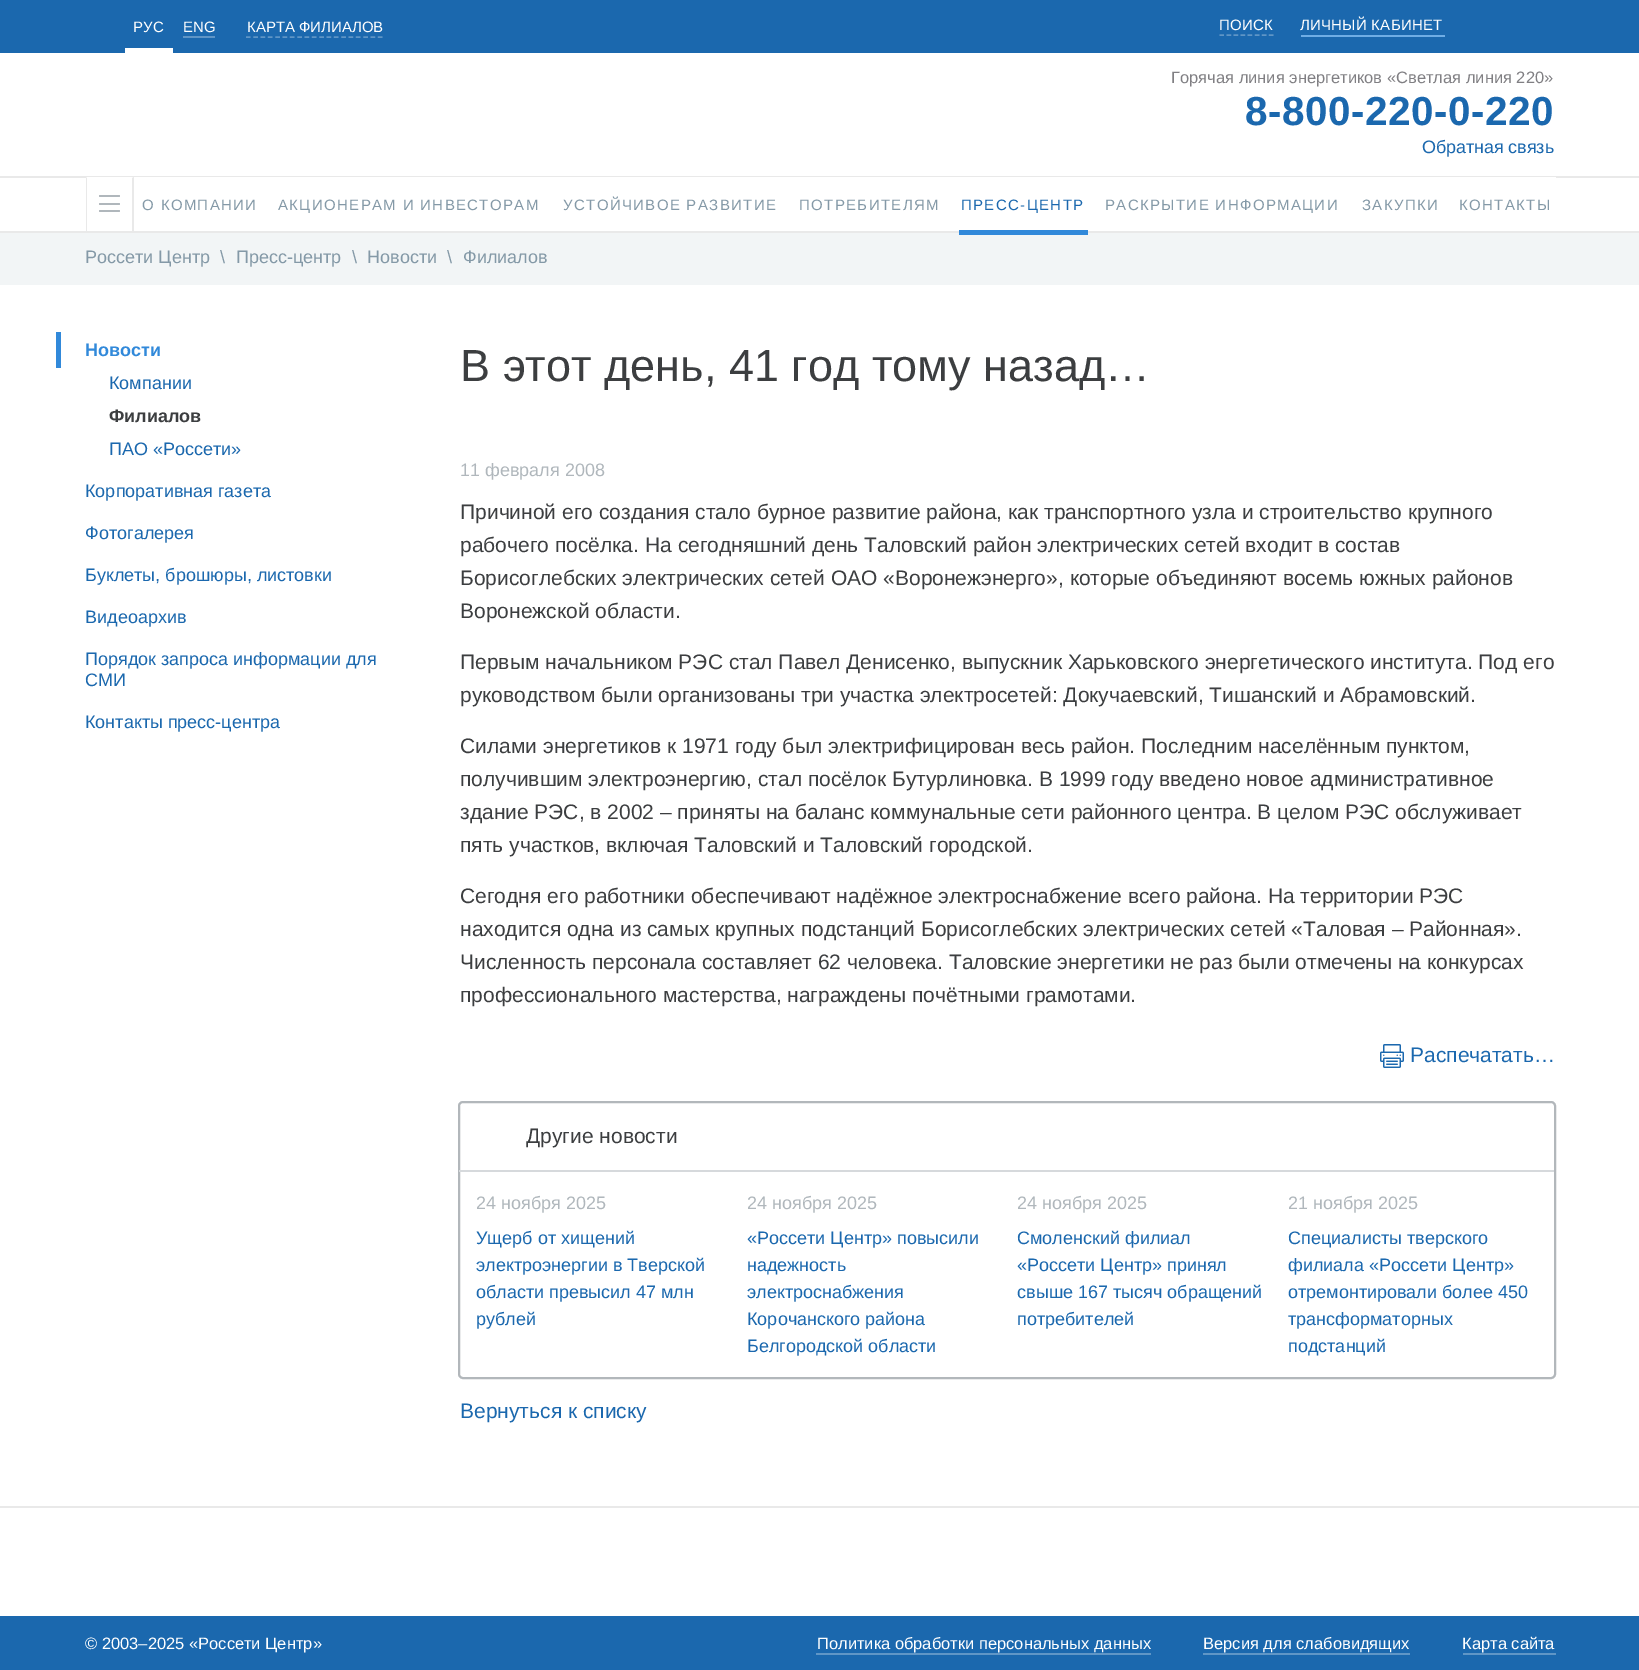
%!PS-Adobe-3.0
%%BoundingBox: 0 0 1639 1670
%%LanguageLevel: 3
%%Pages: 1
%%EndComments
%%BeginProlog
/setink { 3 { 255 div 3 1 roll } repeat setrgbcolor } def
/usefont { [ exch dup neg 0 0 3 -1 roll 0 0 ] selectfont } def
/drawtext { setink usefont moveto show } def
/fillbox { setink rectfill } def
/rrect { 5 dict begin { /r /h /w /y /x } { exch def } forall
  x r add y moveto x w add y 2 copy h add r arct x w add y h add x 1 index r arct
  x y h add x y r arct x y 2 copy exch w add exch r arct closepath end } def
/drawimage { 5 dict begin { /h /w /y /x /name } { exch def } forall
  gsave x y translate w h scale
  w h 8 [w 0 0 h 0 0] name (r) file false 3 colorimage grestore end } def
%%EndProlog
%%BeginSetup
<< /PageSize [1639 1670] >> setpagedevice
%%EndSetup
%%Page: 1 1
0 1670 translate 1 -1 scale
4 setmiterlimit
0 0 1639 1670 255 255 255 fillbox
0 0 1639 53 27 104 174 fillbox
125 48 48 5 255 255 255 fillbox
(РУС) 133 32 /LiberationSans-Regular 15 255 255 255 drawtext
183 36 32 2 95 149 198 fillbox
(ENG) 183 32 /LiberationSans-Regular 15 255 255 255 drawtext
95 149 198 setink
1.5 setlinewidth
[4.5 2.83] 0 setdash
246 37 moveto 382.5 37 lineto stroke
(КАРТА ФИЛИАЛОВ) 247 32 /LiberationSans-Regular 15 255 255 255 drawtext
95 149 198 setink
[4.5 2.56] 0 setdash
1219.5 35 moveto 1273.5 35 lineto stroke
255 255 255 setink
1219 30 moveto 0.25 0 (ПОИСК) ashow
1301 35 144 2 111 173 229 fillbox
255 255 255 setink
1300 30 moveto 0.25 0 (ЛИЧНЫЙ КАБИНЕТ) ashow
0 176 1639 2 233 233 233 fillbox
(Горячая линия энергетиков «Светлая линия 220») 1171 83 /LiberationSans-Regular 16.5 128 127 131 drawtext
/LiberationSans-Bold 40.5 usefont
27 104 174 setink
1245 125 moveto 0.5 0 (8-800-220-0-220) ashow
/LiberationSans-Regular 18 usefont
1422 153 moveto -0.1 0 (Обратная связь) ashow
0 231 1639 2 233 233 233 fillbox
86 177 1470 1 255 255 255 fillbox
233 233 233 setink
134 177 moveto 134 231 lineto 132 231 lineto 132 178 lineto closepath 86 231 moveto 86 177 lineto 87 178 lineto 87 231 lineto closepath fill
176 183 188 setink
99 203 21 2 1 rrect fill
99 195 21 2 1 rrect fill
99 210 21 2 1 rrect fill
/LiberationSans-Regular 15 usefont
132 153 167 setink
142 210 moveto 1.35 0 (О КОМПАНИИ) ashow
278 210 moveto 1.35 0 (АКЦИОНЕРАМ И ИНВЕСТОРАМ) ashow
563 210 moveto 1.35 0 (УСТОЙЧИВОЕ РАЗВИТИЕ) ashow
799 210 moveto 1.35 0 (ПОТРЕБИТЕЛЯМ) ashow
27 104 174 setink
961 210 moveto 1.35 0 (ПРЕСС-ЦЕНТР) ashow
0 233 1639 52 242 245 246 fillbox
959 230 129 5 49 137 218 fillbox
132 153 167 setink
1105 210 moveto 1.35 0 (РАСКРЫТИЕ ИНФОРМАЦИИ) ashow
1362 210 moveto 1.35 0 (ЗАКУПКИ) ashow
1459 210 moveto 1.35 0 (КОНТАКТЫ) ashow
(Россети Центр) 85 263 /LiberationSans-Regular 18 132 153 167 drawtext
(\\) 220 263 /LiberationSans-Regular 18 132 153 167 drawtext
(Пресс-центр) 236 263 /LiberationSans-Regular 18 132 153 167 drawtext
(\\) 352 263 /LiberationSans-Regular 18 132 153 167 drawtext
(Новости) 367 263 /LiberationSans-Regular 18 132 153 167 drawtext
(\\) 447 263 /LiberationSans-Regular 18 132 153 167 drawtext
(Филиалов) 463 263 /LiberationSans-Regular 18 132 153 167 drawtext
56 332 5 36 49 137 218 fillbox
(Новости) 85 356 /LiberationSans-Bold 18 49 137 218 drawtext
(Компании) 109 389 /LiberationSans-Regular 18 27 104 174 drawtext
(Филиалов) 109 422 /LiberationSans-Bold 18 60 62 64 drawtext
(ПАО «Россети») 109 455 /LiberationSans-Regular 18 27 104 174 drawtext
(Корпоративная газета) 85 497 /LiberationSans-Regular 18 27 104 174 drawtext
(Фотогалерея) 85 539 /LiberationSans-Regular 18 27 104 174 drawtext
(Буклеты, брошюры, листовки) 85 581 /LiberationSans-Regular 18 27 104 174 drawtext
(Видеоархив) 85 623 /LiberationSans-Regular 18 27 104 174 drawtext
(Порядок запроса информации для) 85 665 /LiberationSans-Regular 18 27 104 174 drawtext
(СМИ) 85 686 /LiberationSans-Regular 18 27 104 174 drawtext
(Контакты пресс-центра) 85 728 /LiberationSans-Regular 18 27 104 174 drawtext
(В этот день, 41 год тому назад…) 460 381 /LiberationSans-Regular 45 60 62 64 drawtext
(11 февраля 2008) 460 476 /LiberationSans-Regular 18 176 183 188 drawtext
(Причиной его создания стало бурное развитие района, как транспортного узла и строительство крупного) 460 519 /LiberationSans-Regular 21 60 62 64 drawtext
(рабочего посёлка. На сегодняшний день Таловский район электрических сетей входит в состав) 460 552 /LiberationSans-Regular 21 60 62 64 drawtext
(Борисоглебских электрических сетей ОАО «Воронежэнерго», которые объединяют восемь южных районов) 460 585 /LiberationSans-Regular 21 60 62 64 drawtext
(Воронежской области.) 460 618 /LiberationSans-Regular 21 60 62 64 drawtext
(Первым начальником РЭС стал Павел Денисенко, выпускник Харьковского энергетического института. Под его) 460 669 /LiberationSans-Regular 21 60 62 64 drawtext
(руководством были организованы три участка электросетей: Докучаевский, Тишанский и Абрамовский.) 460 702 /LiberationSans-Regular 21 60 62 64 drawtext
(Силами энергетиков к 1971 году был электрифицирован весь район. Последним населённым пунктом,) 460 753 /LiberationSans-Regular 21 60 62 64 drawtext
(получившим электроэнергию, стал посёлок Бутурлиновка. В 1999 году введено новое административное) 460 786 /LiberationSans-Regular 21 60 62 64 drawtext
(здание РЭС, в 2002 – приняты на баланс коммунальные сети районного центра. В целом РЭС обслуживает) 460 819 /LiberationSans-Regular 21 60 62 64 drawtext
(пять участков, включая Таловский и Таловский городской.) 460 852 /LiberationSans-Regular 21 60 62 64 drawtext
(Сегодня его работники обеспечивают надёжное электроснабжение всего района. На территории РЭС) 460 903 /LiberationSans-Regular 21 60 62 64 drawtext
(находится одна из самых крупных подстанций Борисоглебских электрических сетей «Таловая – Районная».) 460 936 /LiberationSans-Regular 21 60 62 64 drawtext
(Численность персонала составляет 62 человека. Таловские энергетики не раз были отмечены на конкурсах) 460 969 /LiberationSans-Regular 21 60 62 64 drawtext
(профессионального мастерства, награждены почётными грамотами.) 460 1002 /LiberationSans-Regular 21 60 62 64 drawtext
(assets/img1.rgb) 1380 1044 24 24 drawimage
(Распечатать…) 1410 1062 /LiberationSans-Regular 21 27 104 174 drawtext
178 183 187 setink
2 setlinewidth
[] 0 setdash
459 1102 1096 276 4 rrect stroke
459 1170 1095 2 214 217 220 fillbox
(Другие новости) 526 1143 /LiberationSans-Regular 21 60 62 64 drawtext
(24 ноября 2025) 476 1209 /LiberationSans-Regular 18 176 183 188 drawtext
(Ущерб от хищений) 476 1244 /LiberationSans-Regular 18 27 104 174 drawtext
(электроэнергии в Тверской) 476 1271 /LiberationSans-Regular 18 27 104 174 drawtext
(области превысил 47 млн) 476 1298 /LiberationSans-Regular 18 27 104 174 drawtext
(рублей) 476 1325 /LiberationSans-Regular 18 27 104 174 drawtext
(24 ноября 2025) 747 1209 /LiberationSans-Regular 18 176 183 188 drawtext
(«Россети Центр» повысили) 747 1244 /LiberationSans-Regular 18 27 104 174 drawtext
(надежность) 747 1271 /LiberationSans-Regular 18 27 104 174 drawtext
(электроснабжения) 747 1298 /LiberationSans-Regular 18 27 104 174 drawtext
(Корочанского района) 747 1325 /LiberationSans-Regular 18 27 104 174 drawtext
(Белгородской области) 747 1352 /LiberationSans-Regular 18 27 104 174 drawtext
(24 ноября 2025) 1017 1209 /LiberationSans-Regular 18 176 183 188 drawtext
(Смоленский филиал) 1017 1244 /LiberationSans-Regular 18 27 104 174 drawtext
(«Россети Центр» принял) 1017 1271 /LiberationSans-Regular 18 27 104 174 drawtext
(свыше 167 тысяч обращений) 1017 1298 /LiberationSans-Regular 18 27 104 174 drawtext
(потребителей) 1017 1325 /LiberationSans-Regular 18 27 104 174 drawtext
(21 ноября 2025) 1288 1209 /LiberationSans-Regular 18 176 183 188 drawtext
(Специалисты тверского) 1288 1244 /LiberationSans-Regular 18 27 104 174 drawtext
(филиала «Россети Центр») 1288 1271 /LiberationSans-Regular 18 27 104 174 drawtext
(отремонтировали более 450) 1288 1298 /LiberationSans-Regular 18 27 104 174 drawtext
(трансформаторных) 1288 1325 /LiberationSans-Regular 18 27 104 174 drawtext
(подстанций) 1288 1352 /LiberationSans-Regular 18 27 104 174 drawtext
(Вернуться к списку) 460 1418 /LiberationSans-Regular 21 27 104 174 drawtext
0 1506 1639 2 233 233 233 fillbox
0 1616 1639 54 27 104 174 fillbox
(© 2003–2025 «Россети Центр») 85 1649 /LiberationSans-Regular 16.5 255 255 255 drawtext
816 1653 335 2 96 150 198 fillbox
(Политика обработки персональных данных) 817 1649 /LiberationSans-Regular 16.5 255 255 255 drawtext
1203 1653 207 2 96 150 198 fillbox
(Версия для слабовидящих) 1203 1649 /LiberationSans-Regular 16.5 255 255 255 drawtext
1463 1653 93 2 96 150 198 fillbox
(Карта сайта) 1462 1649 /LiberationSans-Regular 16.5 255 255 255 drawtext
showpage
%%EOF
